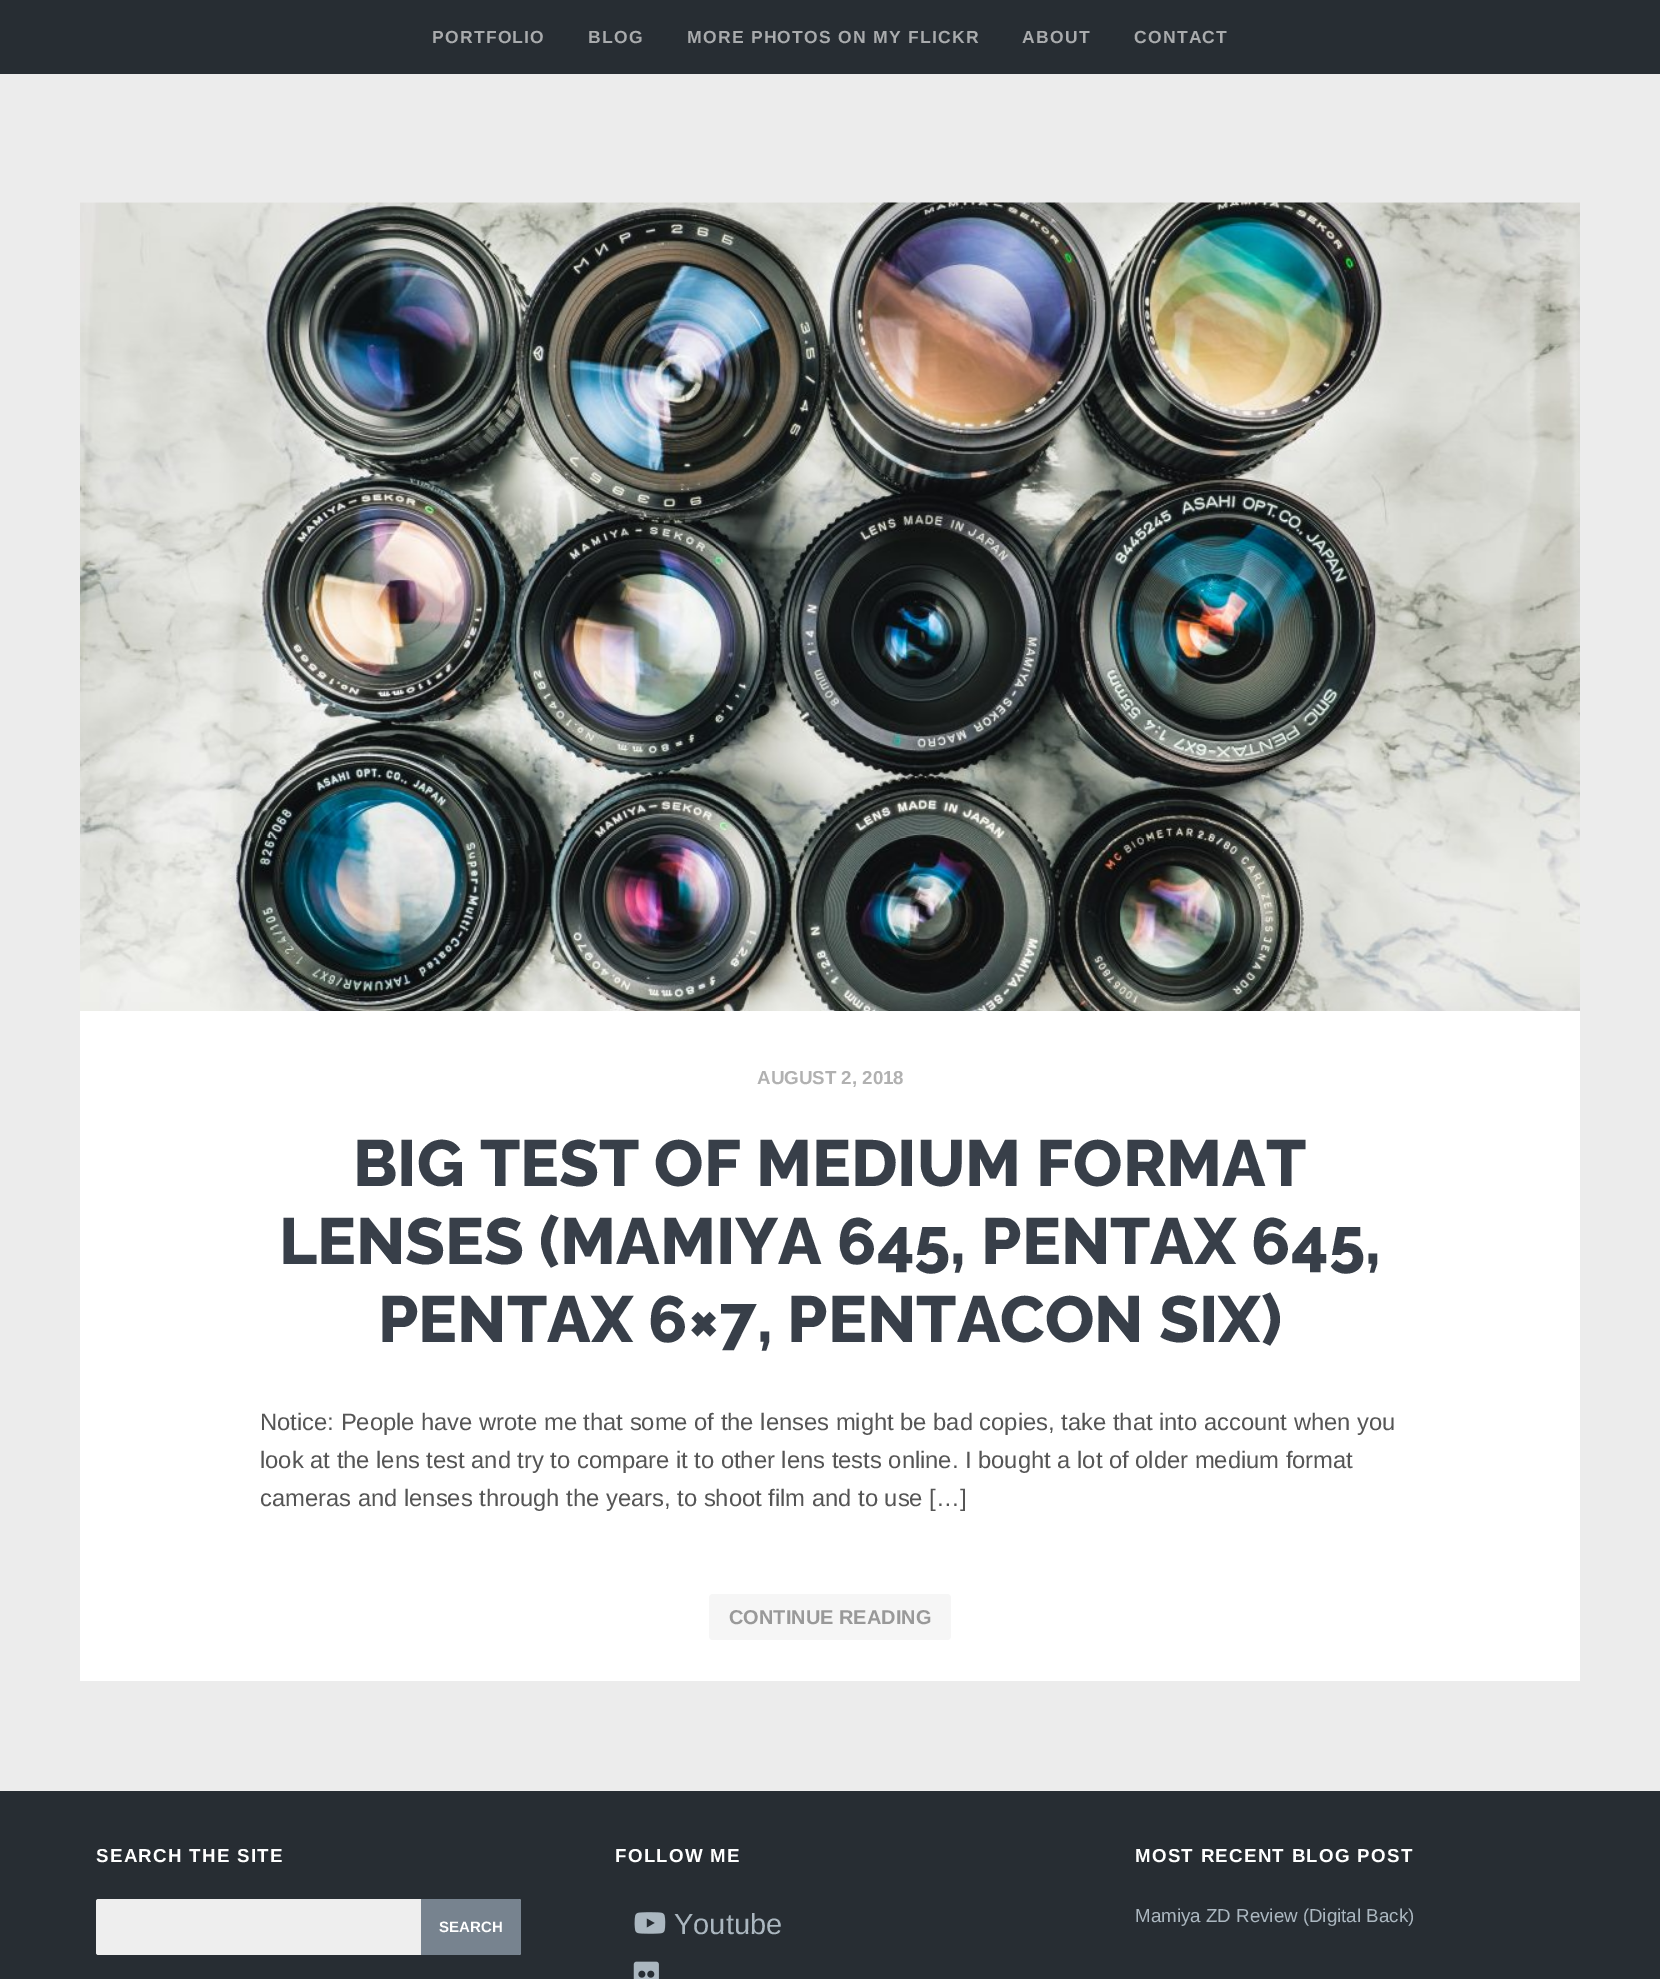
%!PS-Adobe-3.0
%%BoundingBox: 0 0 1660 1979
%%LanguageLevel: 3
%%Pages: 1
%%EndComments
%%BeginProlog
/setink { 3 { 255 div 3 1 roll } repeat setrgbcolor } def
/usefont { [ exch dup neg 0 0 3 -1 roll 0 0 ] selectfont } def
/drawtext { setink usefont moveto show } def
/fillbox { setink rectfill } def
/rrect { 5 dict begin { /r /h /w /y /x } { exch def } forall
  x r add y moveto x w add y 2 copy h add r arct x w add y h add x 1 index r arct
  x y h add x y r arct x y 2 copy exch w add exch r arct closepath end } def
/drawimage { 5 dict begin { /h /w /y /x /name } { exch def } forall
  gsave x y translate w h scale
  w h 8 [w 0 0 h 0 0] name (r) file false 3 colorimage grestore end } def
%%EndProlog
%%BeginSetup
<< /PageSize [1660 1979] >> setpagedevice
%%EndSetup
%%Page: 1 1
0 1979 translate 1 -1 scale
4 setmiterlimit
0 0 1660 1979 236 236 236 fillbox
0 0 1660 74 39 45 51 fillbox
/Arimo-Bold 17.5 usefont
169 171 173 setink
432 43 moveto 1.25 0 (PORTFOLIO) ashow
588 43 moveto 1.25 0 (BLOG) ashow
687 43 moveto 1.25 0 (MORE PHOTOS ON MY FLICKR) ashow
1022 43 moveto 1.25 0 (ABOUT) ashow
1134 43 moveto 1.25 0 (CONTACT) ashow
80 1011 1500 670 255 255 255 fillbox
(assets/img1.rgb) 80 202 1500 809 drawimage
(AUGUST 2, 2018) 757 1084 /Arimo-Bold 18.75 177 177 177 drawtext
(BIG TEST OF MEDIUM FORMAT) 353 1186 /Raleway-ExtraBold 65 56 63 73 drawtext
(LENSES \(MAMIYA 645, PENTAX 645,) 279 1264 /Raleway-ExtraBold 65 56 63 73 drawtext
(PENTAX 6×7, PENTACON SIX\)) 378 1342 /Raleway-ExtraBold 65 56 63 73 drawtext
(Notice: People have wrote me that some of the lenses might be bad copies, take that into account when you) 260 1430 /Arimo-Regular 23.75 85 85 85 drawtext
(look at the lens test and try to compare it to other lens tests online. I bought a lot of older medium format) 260 1468 /Arimo-Regular 23.75 85 85 85 drawtext
(cameras and lenses through the years, to shoot film and to use […]) 260 1506 /Arimo-Regular 23.75 85 85 85 drawtext
246 246 246 setink
709 1594 242 46 4 rrect fill
(CONTINUE READING) 729 1624 /Arimo-Bold 20 153 153 153 drawtext
0 1791 1660 188 39 45 51 fillbox
/Arimo-Bold 18.75 usefont
255 255 255 setink
96 1862 moveto 1.25 0 (SEARCH THE SITE) ashow
238 238 238 setink
96 1899 425 56 2.5 rrect fill
119 131 143 setink
421 1899 moveto 518.5 1899 lineto 520 1899 521 1900 521 1901.5 curveto 521 1952.5 lineto 521 1954 520 1955 518.5 1955 curveto 421 1955 lineto closepath fill
(SEARCH) 439 1932 /LiberationSans-Bold 15 255 255 255 drawtext
/Arimo-Bold 18.75 usefont
615 1862 moveto 1.25 0 (FOLLOW ME) ashow
(assets/img2.rgb) 634 1912 32 22 drawimage
(Youtube) 674 1934 /Arimo-Regular 29 171 183 192 drawtext
(assets/img3.rgb) 633 1961 26 18 drawimage
/Arimo-Bold 18.75 usefont
255 255 255 setink
1135 1862 moveto 1.25 0 (MOST RECENT BLOG POST) ashow
(Mamiya ZD Review \(Digital Back\)) 1135 1922 /Arimo-Regular 18.75 171 183 192 drawtext
showpage
%%EOF
